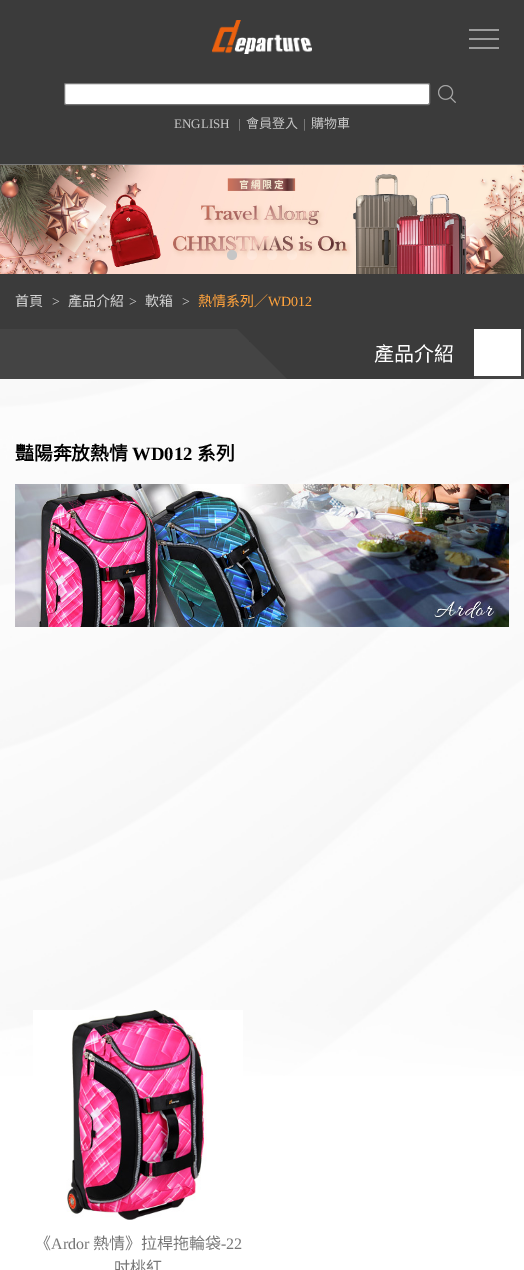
%!PS-Adobe-3.0
%%BoundingBox: 0 0 524 1270
%%LanguageLevel: 3
%%Pages: 1
%%EndComments
%%BeginProlog
/setink { 3 { 255 div 3 1 roll } repeat setrgbcolor } def
/usefont { [ exch dup neg 0 0 3 -1 roll 0 0 ] selectfont } def
/drawtext { setink usefont moveto show } def
/fillbox { setink rectfill } def
/setalpha { dup .setfillconstantalpha .setstrokeconstantalpha } def
/disc { newpath 0 360 arc closepath } def
/rrect { 5 dict begin { /r /h /w /y /x } { exch def } forall
  x r add y moveto x w add y 2 copy h add r arct x w add y h add x 1 index r arct
  x y h add x y r arct x y 2 copy exch w add exch r arct closepath end } def
/drawimage { 5 dict begin { /h /w /y /x /name } { exch def } forall
  gsave x y translate w h scale
  w h 8 [w 0 0 h 0 0] name (r) file false 3 colorimage grestore end } def
%%EndProlog
%%BeginSetup
<< /PageSize [524 1270] /PageUsesTransparency true >> setpagedevice
%%EndSetup
%%Page: 1 1
0 .pushpdf14devicefilter
0 1270 translate 1 -1 scale
4 setmiterlimit
0 0 524 1270 255 255 255 fillbox
0 0 524 164 59 59 59 fillbox
469 29 30 2 156 156 156 fillbox
469 38 30 2 156 156 156 fillbox
469 47 30 2 156 156 156 fillbox
(assets/img1.rgb) 0 379 524 697 drawimage
0 164 524 1 119 119 119 fillbox
(assets/img2.rgb) 212 20 100 34 drawimage
255 255 255 setink
64.5 83.5 365 21 1.5 rrect gsave fill grestore
118 118 118 setink
stroke
(assets/img3.rgb) 438 85 18 18 drawimage
(ENGLISH) 174 128 /LiberationSerif-Regular 13 198 198 198 drawtext
(|) 238 128 /LiberationSerif-Regular 13 171 171 171 drawtext
(會員登入) 246 128 /NotoSansCJKTC-Regular 13 198 198 198 drawtext
(|) 303 128 /LiberationSerif-Regular 13 171 171 171 drawtext
(購物車) 311 128 /NotoSansCJKTC-Regular 13 198 198 198 drawtext
(assets/img4.rgb) 0 165 524 109 drawimage
232 255 5 disc fill
0.2 setalpha
255 255 255 setink
252 255 5 disc fill
272 255 5 disc fill
292 255 5 disc fill
1 setalpha
0 274 524 55 59 59 59 fillbox
(首頁) 15 306 /NotoSansCJKTC-Regular 14 212 212 212 drawtext
(>) 52 306 /LiberationSerif-Regular 14 212 212 212 drawtext
(產品介紹) 68 306 /NotoSansCJKTC-Regular 14 212 212 212 drawtext
(>) 129 306 /LiberationSerif-Regular 14 212 212 212 drawtext
(軟箱) 145 306 /NotoSansCJKTC-Regular 14 212 212 212 drawtext
(>) 182 306 /LiberationSerif-Regular 14 212 212 212 drawtext
(熱情系列／) 198 306 /NotoSansCJKTC-Regular 14 255 163 60 drawtext
(WD012) 268 306 /LiberationSerif-Regular 14 255 163 60 drawtext
gsave 0 329 moveto 474 329 lineto 474 379 lineto 0 379 lineto closepath clip newpath
<< /ShadingType 2 /ColorSpace /DeviceRGB /Coords [119 498 406 211] /Extend [true true] /Function << /FunctionType 3 /Domain [0 1] /Functions [<< /FunctionType 2 /Domain [0 1] /C0 [0.267 0.267 0.267] /C1 [0.267 0.267 0.267] /N 1 >> << /FunctionType 2 /Domain [0 1] /C0 [0.231 0.231 0.231] /C1 [0.231 0.231 0.231] /N 1 >>] /Bounds [0.5] /Encode [0 1 0 1] >> >> shfill grestore
(產品介紹) 374 361 /NotoSansCJKTC-Regular 20 255 255 255 drawtext
521 329 3 50 68 68 68 fillbox
474 376 50 3 68 68 68 fillbox
0.65 setalpha
0 379 524 697 255 255 255 fillbox
1 setalpha
(豔陽奔放熱情) 15 460 /NotoSansCJKTC-Bold 18.75 0 0 0 drawtext
(WD012) 132 460 /LiberationSerif-Bold 18.75 0 0 0 drawtext
(系列) 197 460 /NotoSansCJKTC-Bold 18.75 0 0 0 drawtext
(assets/img5.rgb) 15 484 494 143 drawimage
(assets/img6.rgb) 33 1010 210 210 drawimage
(《) 35 1249 /NotoSansCJKTC-Regular 16 119 119 119 drawtext
(Ardor) 51 1249 /LiberationSerif-Regular 16 119 119 119 drawtext
(熱情》拉桿拖輪袋) 93 1249 /NotoSansCJKTC-Regular 16 119 119 119 drawtext
(-22) 221 1249 /LiberationSerif-Regular 16 119 119 119 drawtext
(吋桃紅) 114 1273 /NotoSansCJKTC-Regular 16 119 119 119 drawtext
.poppdf14devicefilter showpage
%%EOF
